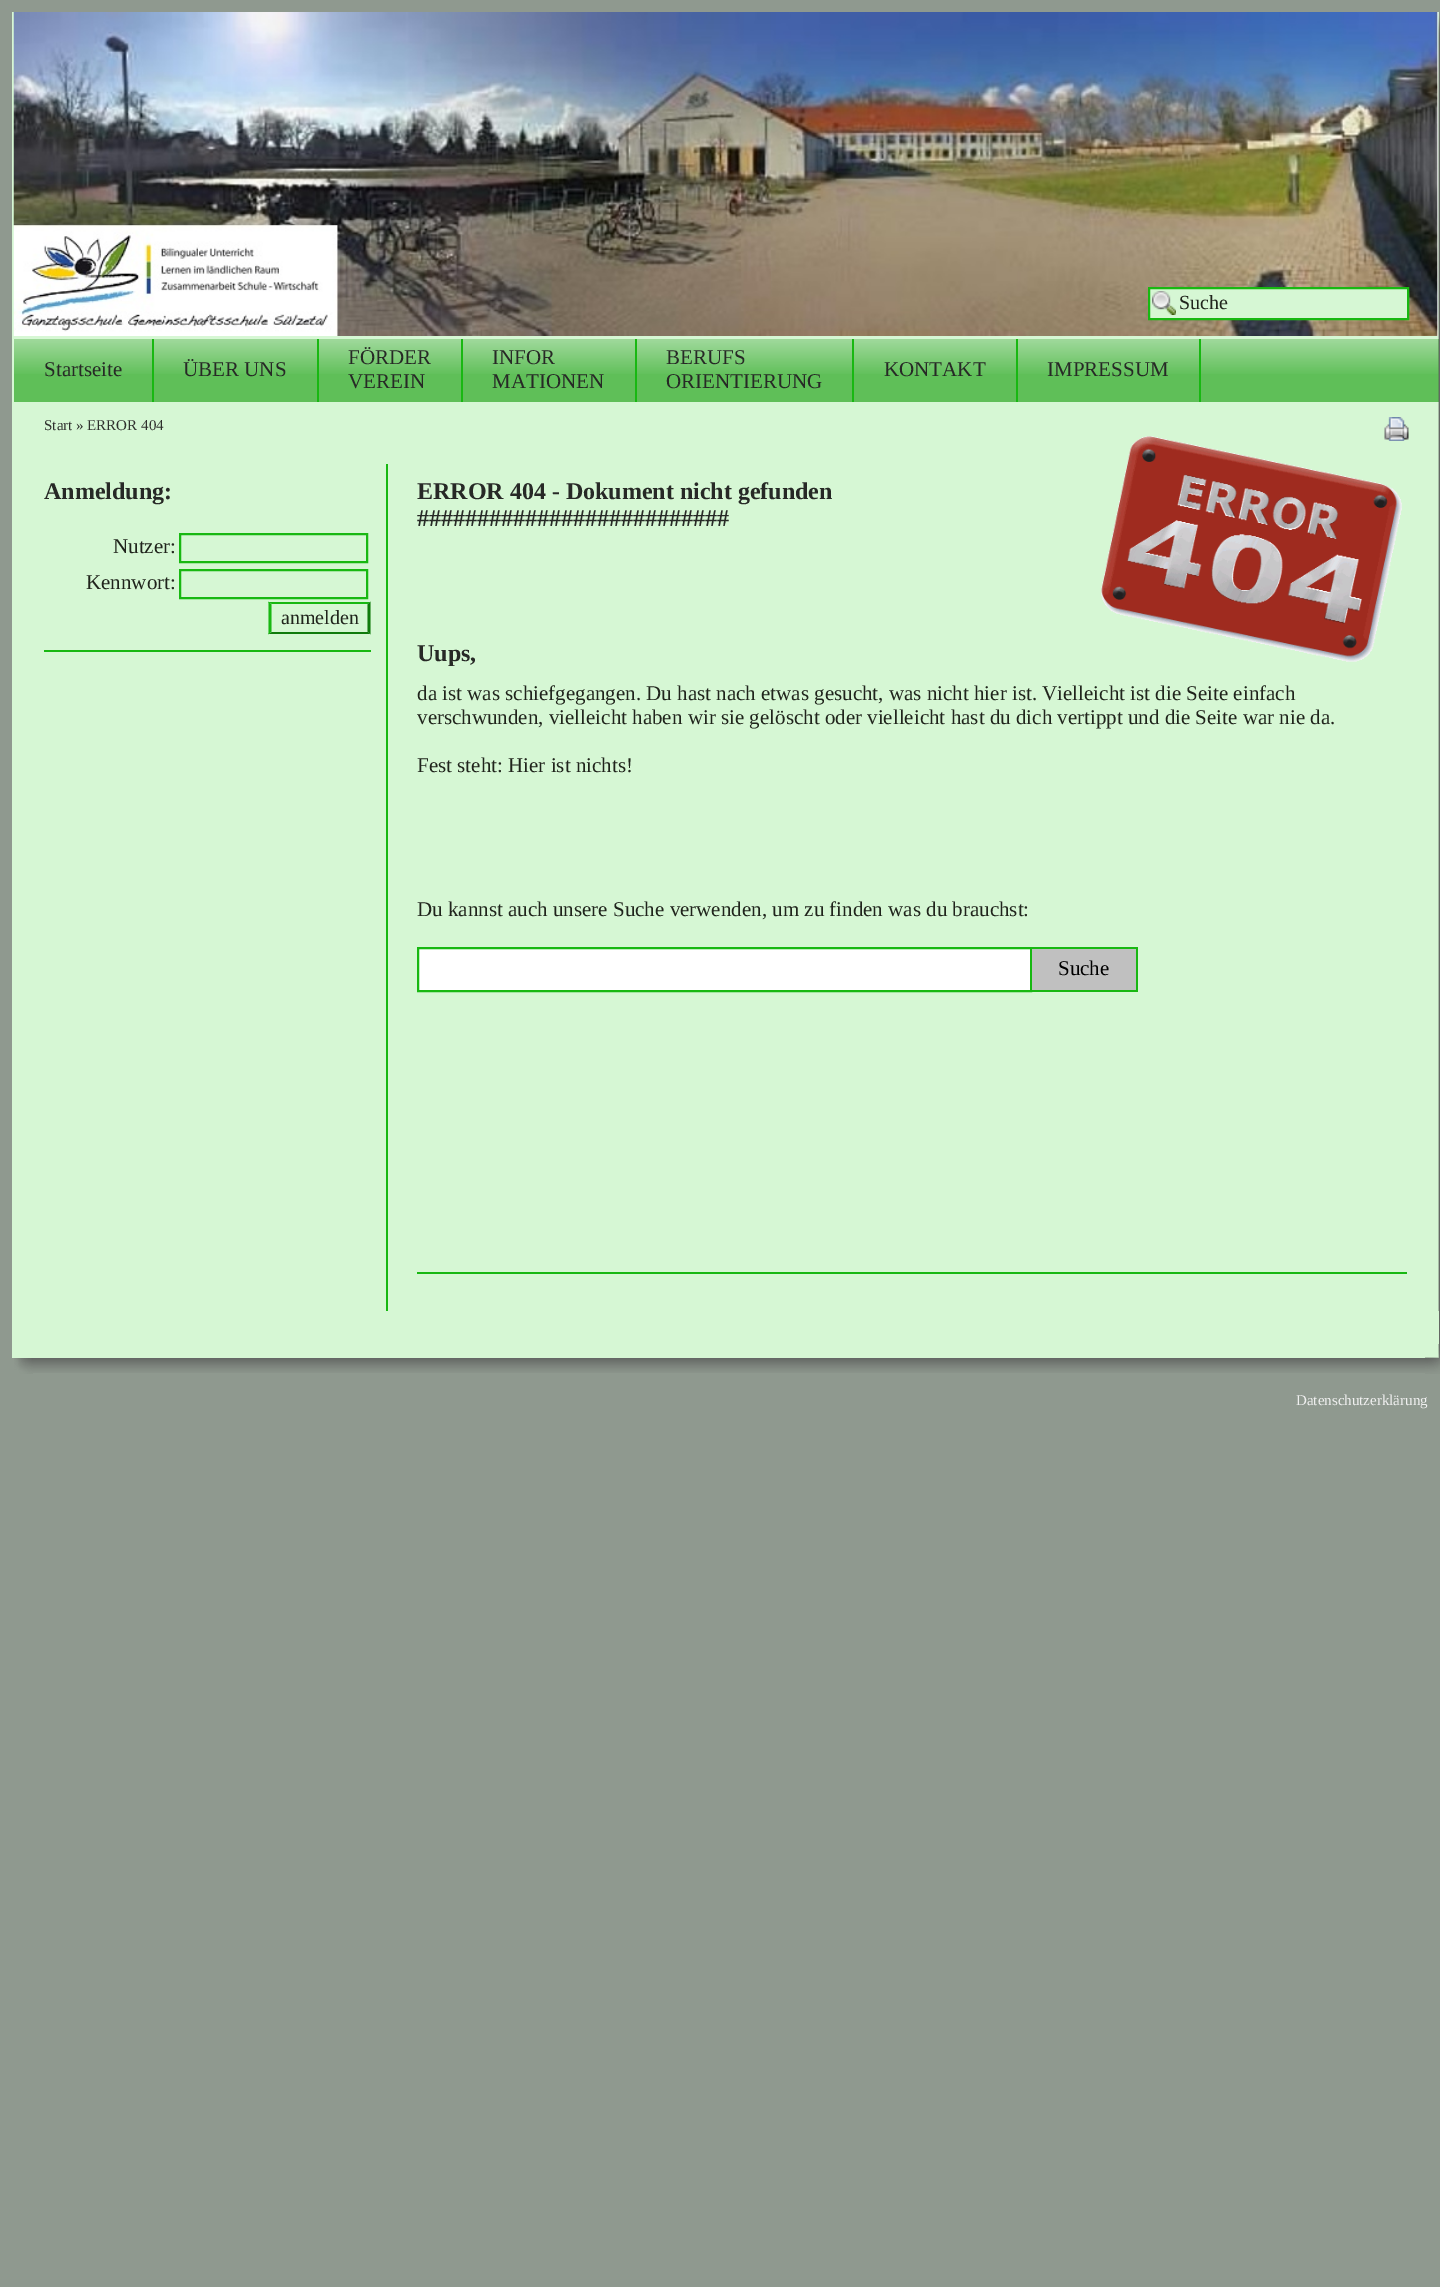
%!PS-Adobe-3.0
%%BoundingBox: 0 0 1440 2287
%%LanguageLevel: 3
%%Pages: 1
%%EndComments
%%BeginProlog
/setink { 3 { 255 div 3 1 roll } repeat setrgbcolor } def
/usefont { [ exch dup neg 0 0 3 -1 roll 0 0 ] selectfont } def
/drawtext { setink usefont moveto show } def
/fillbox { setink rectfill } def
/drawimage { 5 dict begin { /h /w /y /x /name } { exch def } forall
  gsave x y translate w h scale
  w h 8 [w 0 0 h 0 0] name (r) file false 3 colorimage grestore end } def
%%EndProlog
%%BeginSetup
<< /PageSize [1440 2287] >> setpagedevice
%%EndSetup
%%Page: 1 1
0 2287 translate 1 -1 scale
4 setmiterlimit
0 0 1440 2287 143 153 143 fillbox
12 12 1427 1299 214 247 212 fillbox
(assets/img1.rgb) 13 12 1426 324 drawimage
1150 289 257 29 214 247 212 fillbox
(assets/img2.rgb) 1152 291 24 24 drawimage
24 184 18 setink
2 setlinewidth
1149 288 259 31 rectstroke
(Suche) 1179 309 /LiberationSerif-Regular 20 32 36 28 drawtext
14 339 1425 63 95 191 88 fillbox
(assets/img5.rgb) 13 339 1426 35 drawimage
(assets/img3.rgb) 1438 45 2 1299 drawimage
(assets/img4.rgb) 1438 12 2 33 drawimage
152 339 2 63 24 184 18 fillbox
(Startseite) 44 376 /LiberationSerif-Regular 21 39 41 38 drawtext
317 339 2 63 24 184 18 fillbox
(ÜBER UNS) 183 376 /LiberationSerif-Regular 21 39 41 38 drawtext
461 339 2 63 24 184 18 fillbox
(FÖRDER) 348 364 /LiberationSerif-Regular 21 39 41 38 drawtext
(VEREIN) 348 388 /LiberationSerif-Regular 21 39 41 38 drawtext
635 339 2 63 24 184 18 fillbox
(INFOR) 492 364 /LiberationSerif-Regular 21 39 41 38 drawtext
(MATIONEN) 492 388 /LiberationSerif-Regular 21 39 41 38 drawtext
852 339 2 63 24 184 18 fillbox
(BERUFS) 666 364 /LiberationSerif-Regular 21 39 41 38 drawtext
(ORIENTIERUNG) 666 388 /LiberationSerif-Regular 21 39 41 38 drawtext
1016 339 2 63 24 184 18 fillbox
(KONTAKT) 884 376 /LiberationSerif-Regular 21 39 41 38 drawtext
1199 339 2 63 24 184 18 fillbox
(IMPRESSUM) 1047 376 /LiberationSerif-Regular 21 39 41 38 drawtext
(Start » ERROR 404) 44 430 /LiberationSerif-Regular 15 47 48 45 drawtext
(assets/img6.rgb) 1384 417 25 24 drawimage
44 650 327 2 24 184 18 fillbox
(Anmeldung:) 44 499 /LiberationSerif-Bold 24 39 41 38 drawtext
(Nutzer:) 113 553 /LiberationSerif-Regular 21 32 36 28 drawtext
24 184 18 setink
180 534 187 28 rectstroke
(Kennwort:) 86 589 /LiberationSerif-Regular 21 32 36 28 drawtext
24 184 18 setink
180 570 187 28 rectstroke
268 602 moveto 370 602 lineto 368 604 lineto 272 604 lineto closepath fill
16 123 12 setink
370.5 601.5 moveto 370.5 634.5 lineto 367.5 631.5 lineto 367.5 604.5 lineto closepath fill
370 634 moveto 268 634 lineto 272 632 lineto 368 632 lineto closepath fill
24 184 18 setink
268.5 634.5 moveto 268.5 601.5 lineto 271.5 604.5 lineto 271.5 631.5 lineto closepath fill
(anmelden) 281 624 /LiberationSerif-Regular 20 32 36 28 drawtext
386 464 2 847 24 184 18 fillbox
417 1272 990 2 24 184 18 fillbox
(ERROR 404 - Dokument nicht gefunden) 417 499 /LiberationSerif-Bold 24 39 41 38 drawtext
(##########################) 417 526 /LiberationSerif-Bold 24 39 41 38 drawtext
(Uups,) 417 661 /LiberationSerif-Bold 24 39 41 38 drawtext
(assets/img7.rgb) 1101 436 301 226 drawimage
(da ist was schiefgegangen. Du hast nach etwas gesucht, was nicht hier ist. Vielleicht ist die Seite einfach) 417 700 /LiberationSerif-Regular 21 32 36 28 drawtext
(verschwunden, vielleicht haben wir sie gelöscht oder vielleicht hast du dich vertippt und die Seite war nie da.) 417 724 /LiberationSerif-Regular 21 32 36 28 drawtext
(Fest steht: Hier ist nichts!) 417 772 /LiberationSerif-Regular 21 32 36 28 drawtext
(Du kannst auch unsere Suche verwenden, um zu finden was du brauchst:) 417 916 /LiberationSerif-Regular 21 32 36 28 drawtext
255 255 255 setink
418 948 moveto 1031 948 lineto 1031 991 lineto 418 991 lineto closepath gsave fill grestore
24 184 18 setink
stroke
1032 949 104 41 192 192 192 fillbox
1032 947 105 2 24 184 18 fillbox
1136 947 2 45 24 184 18 fillbox
1032 990 105 2 24 184 18 fillbox
(Suche) 1058 975 /LiberationSerif-Regular 21 0 0 0 drawtext
12 1311 1427 47 214 247 212 fillbox
(assets/img8.rgb) 33 1358 1392 15 drawimage
(assets/img9.rgb) 14 1358 19 16 drawimage
(assets/img10.rgb) 1425 1344 15 30 drawimage
(Datenschutzerklärung) 1296 1405 /LiberationSerif-Regular 15 240 240 240 drawtext
showpage
%%EOF
